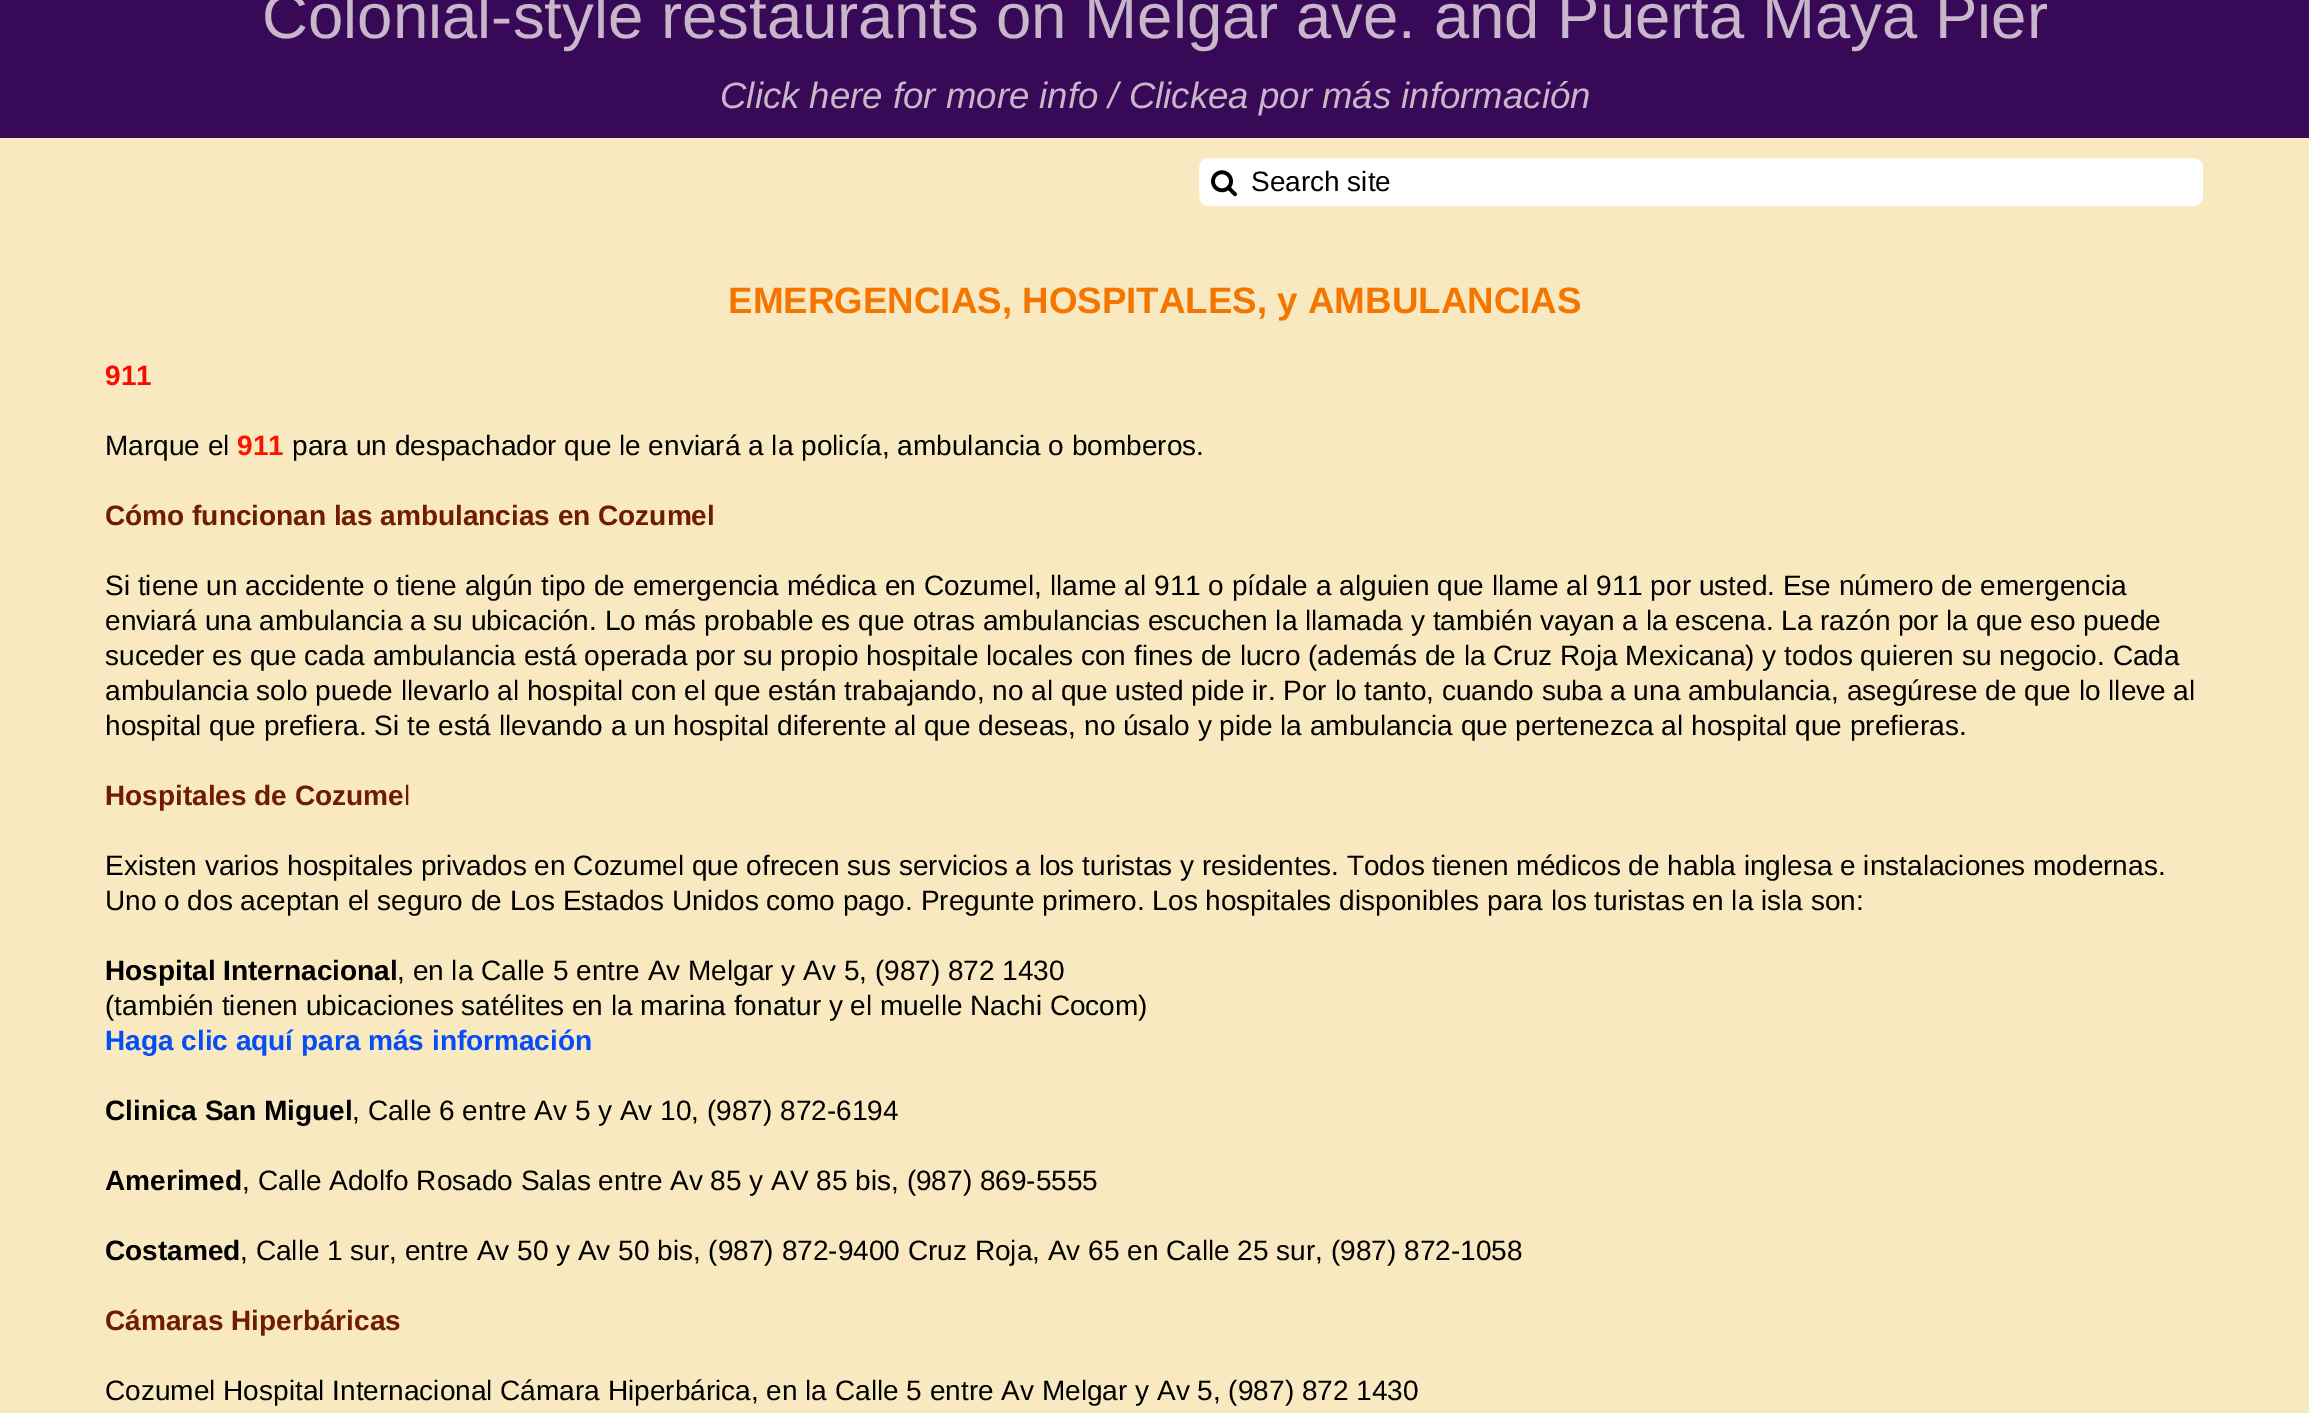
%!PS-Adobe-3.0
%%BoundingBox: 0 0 2309 1413
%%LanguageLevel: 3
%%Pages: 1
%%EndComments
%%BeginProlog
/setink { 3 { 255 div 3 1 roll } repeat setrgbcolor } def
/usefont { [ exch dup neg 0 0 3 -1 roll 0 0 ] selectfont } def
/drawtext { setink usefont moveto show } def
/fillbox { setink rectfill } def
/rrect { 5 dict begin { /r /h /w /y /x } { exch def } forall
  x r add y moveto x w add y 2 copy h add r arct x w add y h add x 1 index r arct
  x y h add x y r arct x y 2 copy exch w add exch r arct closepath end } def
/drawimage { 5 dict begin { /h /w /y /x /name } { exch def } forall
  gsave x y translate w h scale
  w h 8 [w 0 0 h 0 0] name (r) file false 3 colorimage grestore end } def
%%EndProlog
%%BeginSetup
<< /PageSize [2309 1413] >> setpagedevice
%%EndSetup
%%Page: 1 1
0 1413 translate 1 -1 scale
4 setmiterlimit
0 0 2309 1413 249 233 192 fillbox
0 0 2309 138 56 9 87 fillbox
(Colonial-style restaurants on Melgar ave. and Puerta Maya Pier) 262 38 /LiberationSans-Regular 63.5 200 183 202 drawtext
(Click here for more info / Clickea por más información) 720 108 /LiberationSans-Italic 36.6 200 183 202 drawtext
255 255 255 setink
1198 157 1006 50 10 rrect gsave fill grestore
249 233 192 setink
2 setlinewidth
stroke
(assets/img1.rgb) 1211 170 26 27 drawimage
(Search site) 1251 191 /LiberationSans-Regular 28 0 0 0 drawtext
(EMERGENCIAS, HOSPITALES, y AMBULANCIAS) 728 313 /LiberationSans-Bold 36.75 244 118 0 drawtext
(911) 105 385 /LiberationSans-Bold 28 249 12 0 drawtext
(Marque el) 105 455 /LiberationSans-Regular 28 0 0 0 drawtext
(911) 237 455 /LiberationSans-Bold 28 249 20 0 drawtext
(para un despachador que le enviará a la policía, ambulancia o bomberos.) 292 455 /LiberationSans-Regular 28 0 0 0 drawtext
(Cómo funcionan las ambulancias en Cozumel) 105 525 /LiberationSans-Bold 28 112 28 0 drawtext
(Si tiene un accidente o tiene algún tipo de emergencia médica en Cozumel, llame al 911 o pídale a alguien que llame al 911 por usted. Ese número de emergencia) 105 595 /LiberationSans-Regular 28 0 0 0 drawtext
(enviará una ambulancia a su ubicación. Lo más probable es que otras ambulancias escuchen la llamada y también vayan a la escena. La razón por la que eso puede) 105 630 /LiberationSans-Regular 28 0 0 0 drawtext
(suceder es que cada ambulancia está operada por su propio hospitale locales con fines de lucro \(además de la Cruz Roja Mexicana\) y todos quieren su negocio. Cada) 105 665 /LiberationSans-Regular 28 0 0 0 drawtext
(ambulancia solo puede llevarlo al hospital con el que están trabajando, no al que usted pide ir. Por lo tanto, cuando suba a una ambulancia, asegúrese de que lo lleve al) 105 700 /LiberationSans-Regular 28 0 0 0 drawtext
(hospital que prefiera. Si te está llevando a un hospital diferente al que deseas, no úsalo y pide la ambulancia que pertenezca al hospital que prefieras.) 105 735 /LiberationSans-Regular 28 0 0 0 drawtext
(Hospitales de Cozume) 105 805 /LiberationSans-Bold 28 112 28 0 drawtext
(l) 404 805 /LiberationSans-Regular 28 112 28 0 drawtext
(Existen varios hospitales privados en Cozumel que ofrecen sus servicios a los turistas y residentes. Todos tienen médicos de habla inglesa e instalaciones modernas.) 105 875 /LiberationSans-Regular 28 0 0 0 drawtext
(Uno o dos aceptan el seguro de Los Estados Unidos como pago. Pregunte primero. Los hospitales disponibles para los turistas en la isla son:) 105 910 /LiberationSans-Regular 28 0 0 0 drawtext
(Hospital Internacional) 105 980 /LiberationSans-Bold 28 0 0 0 drawtext
(, en la Calle 5 entre Av Melgar y Av 5, \(987\) 872 1430) 397 980 /LiberationSans-Regular 28 0 0 0 drawtext
(\(también tienen ubicaciones satélites en la marina fonatur y el muelle Nachi Cocom\)) 105 1015 /LiberationSans-Regular 28 0 0 0 drawtext
(Haga clic aquí para más información) 105 1050 /LiberationSans-Bold 28 4 77 247 drawtext
(Clinica San Miguel) 105 1120 /LiberationSans-Bold 28 0 0 0 drawtext
(, Calle 6 entre Av 5 y Av 10, \(987\) 872-6194) 352 1120 /LiberationSans-Regular 28 0 0 0 drawtext
(Amerimed) 105 1190 /LiberationSans-Bold 28 0 0 0 drawtext
(, Calle Adolfo Rosado Salas entre Av 85 y AV 85 bis, \(987\) 869-5555) 242 1190 /LiberationSans-Regular 28 0 0 0 drawtext
(Costamed) 105 1260 /LiberationSans-Bold 28 0 0 0 drawtext
(, Calle 1 sur, entre Av 50 y Av 50 bis, \(987\) 872-9400 Cruz Roja, Av 65 en Calle 25 sur, \(987\) 872-1058) 240 1260 /LiberationSans-Regular 28 0 0 0 drawtext
(Cámaras Hiperbáricas) 105 1330 /LiberationSans-Bold 28 112 28 0 drawtext
(Cozumel Hospital Internacional Cámara Hiperbárica, en la Calle 5 entre Av Melgar y Av 5, \(987\) 872 1430) 105 1400 /LiberationSans-Regular 28 0 0 0 drawtext
showpage
%%EOF
